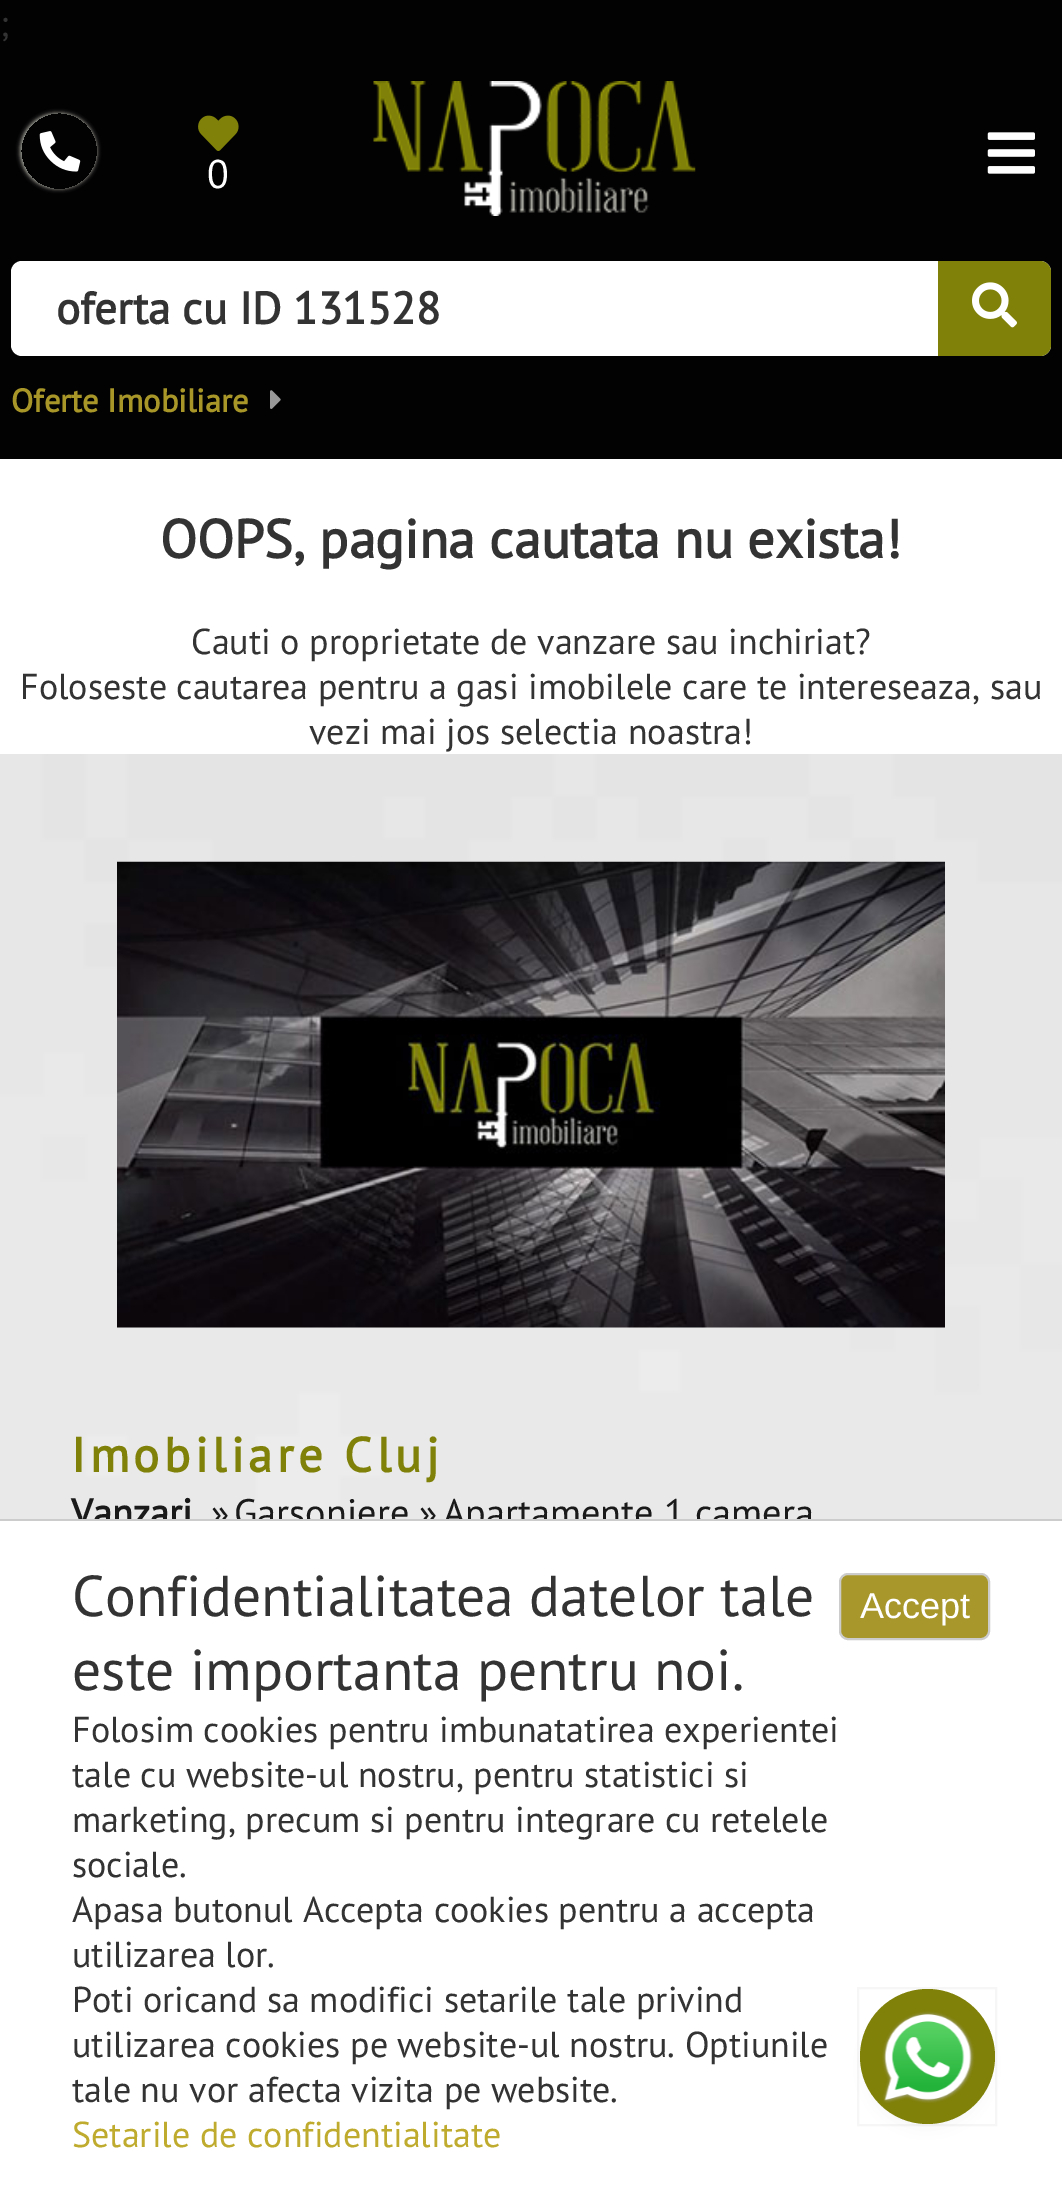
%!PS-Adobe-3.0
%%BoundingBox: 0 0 1062 2190
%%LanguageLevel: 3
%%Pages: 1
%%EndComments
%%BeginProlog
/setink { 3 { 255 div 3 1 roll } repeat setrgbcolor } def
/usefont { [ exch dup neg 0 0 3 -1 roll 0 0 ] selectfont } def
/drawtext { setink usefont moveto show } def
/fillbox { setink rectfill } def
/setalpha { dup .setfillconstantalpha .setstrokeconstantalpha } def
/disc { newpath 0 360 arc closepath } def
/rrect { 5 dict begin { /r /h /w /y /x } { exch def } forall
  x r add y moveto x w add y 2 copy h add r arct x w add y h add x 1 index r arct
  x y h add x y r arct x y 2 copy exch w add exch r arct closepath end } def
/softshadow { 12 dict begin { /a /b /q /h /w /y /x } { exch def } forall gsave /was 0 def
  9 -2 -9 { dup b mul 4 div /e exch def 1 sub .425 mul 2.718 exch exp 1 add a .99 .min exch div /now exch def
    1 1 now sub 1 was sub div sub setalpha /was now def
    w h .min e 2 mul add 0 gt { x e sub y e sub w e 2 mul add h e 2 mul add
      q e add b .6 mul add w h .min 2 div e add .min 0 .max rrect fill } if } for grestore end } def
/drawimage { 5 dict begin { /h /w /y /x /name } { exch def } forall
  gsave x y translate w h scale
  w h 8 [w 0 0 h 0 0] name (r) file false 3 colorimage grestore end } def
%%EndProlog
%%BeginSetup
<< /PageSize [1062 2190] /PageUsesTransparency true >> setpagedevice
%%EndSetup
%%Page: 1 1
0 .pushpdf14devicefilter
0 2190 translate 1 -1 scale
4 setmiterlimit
0 0 1062 2190 3 2 3 fillbox
(;) 0 36 /PTSans-Regular 36 51 51 51 drawtext
gsave
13 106 moveto 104 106 lineto 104 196 lineto 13 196 lineto closepath 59.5 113 moveto 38 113 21 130 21 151 curveto 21 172.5 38 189.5 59.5 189.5 curveto 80.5 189.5 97.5 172.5 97.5 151 curveto 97.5 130 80.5 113 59.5 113 curveto closepath eoclip newpath
161 161 153 setink
20 113 77 76 38 2 1 softshadow
grestore
(assets/img1.rgb) 39 131 42 41 drawimage
(assets/img2.rgb) 198 115 41 36 drawimage
(0) 207 188 /PTSans-Regular 40 255 255 255 drawtext
(assets/img3.rgb) 373 81 323 135 drawimage
(assets/img4.rgb) 987 132 48 42 drawimage
11 261 1040 95 11 rrect fill
(oferta cu ID 131528) 56 324 /PTSans-Bold 45 51 51 51 drawtext
127 129 8 setink
938 261 moveto 1040 261 lineto 1046 261 1051 266 1051 272 curveto 1051 345 lineto 1051 351 1046 356 1040 356 curveto 938 356 lineto closepath fill
(assets/img5.rgb) 972 282 45 46 drawimage
(Oferte Imobiliare) 11 412 /PTSans-Bold 32.5 168 151 40 drawtext
(assets/img6.rgb) 270 390 11 19 drawimage
0 459 1062 295 255 255 255 fillbox
(OOPS, pagina cautata nu exista!) 160 558 /PTSans-Bold 54 51 51 51 drawtext
(Cauti o proprietate de vanzare sau inchiriat?) 191 654 /PTSans-Regular 36 51 51 51 drawtext
(Foloseste cautarea pentru a gasi imobilele care te intereseaza, sau) 20 699 /PTSans-Regular 36 51 51 51 drawtext
(vezi mai jos selectia noastra!) 309 744 /PTSans-Regular 36 51 51 51 drawtext
(assets/img7.rgb) 0 754 1062 765 drawimage
(assets/img8.rgb) 117 861 828 467 drawimage
/PTSans-Bold 48.5 usefont
127 129 8 setink
71 1472 moveto 4.5 0 (Imobiliare Cluj) ashow
(Vanzari) 71 1526 /PTSans-Bold 38.25 26 26 26 drawtext
(») 211 1526 /PTSans-Regular 38.25 26 26 26 drawtext
(Garsoniere ») 234 1526 /PTSans-Regular 38.25 26 26 26 drawtext
(Apartamente 1 camera) 443 1526 /PTSans-Regular 38.25 26 26 26 drawtext
0 1519 1062 2 204 204 204 fillbox
0 1521 1062 669 255 255 255 fillbox
(Confidentialitatea datelor tale) 72 1616 /PTSans-Regular 57.6 51 51 51 drawtext
(este importanta pentru noi.) 72 1690 /PTSans-Regular 57.6 51 51 51 drawtext
(Folosim cookies pentru imbunatatirea experientei) 72 1742 /PTSans-Regular 36 51 51 51 drawtext
(tale cu website-ul nostru, pentru statistici si) 72 1787 /PTSans-Regular 36 51 51 51 drawtext
(marketing, precum si pentru integrare cu retelele) 72 1832 /PTSans-Regular 36 51 51 51 drawtext
(sociale.) 72 1877 /PTSans-Regular 36 51 51 51 drawtext
(Apasa butonul Accepta cookies pentru a accepta) 72 1922 /PTSans-Regular 36 51 51 51 drawtext
(utilizarea lor.) 72 1967 /PTSans-Regular 36 51 51 51 drawtext
(Poti oricand sa modifici setarile tale privind) 72 2012 /PTSans-Regular 36 51 51 51 drawtext
(utilizarea cookies pe website-ul nostru. Optiunile) 72 2057 /PTSans-Regular 36 51 51 51 drawtext
(tale nu vor afecta vizita pe website.) 72 2102 /PTSans-Regular 36 51 51 51 drawtext
(Setarile de confidentialitate) 72 2147 /PTSans-Regular 36 191 171 46 drawtext
168 151 43 setink
840 1574 149 65 8 rrect gsave fill grestore
204 204 204 setink
2 setlinewidth
stroke
(Accept) 860 1618 /LiberationSans-Regular 36 255 255 255 drawtext
22 26 30 setink
873 2012 108 108 54 9 0.08 softshadow
0.04 setalpha
858 1988 138 137 rectstroke
1 setalpha
128 129 9 setink
927.5 2056.5 67.5 disc fill
(assets/img9.rgb) 882 2011 93 92 drawimage
.poppdf14devicefilter showpage
%%EOF
